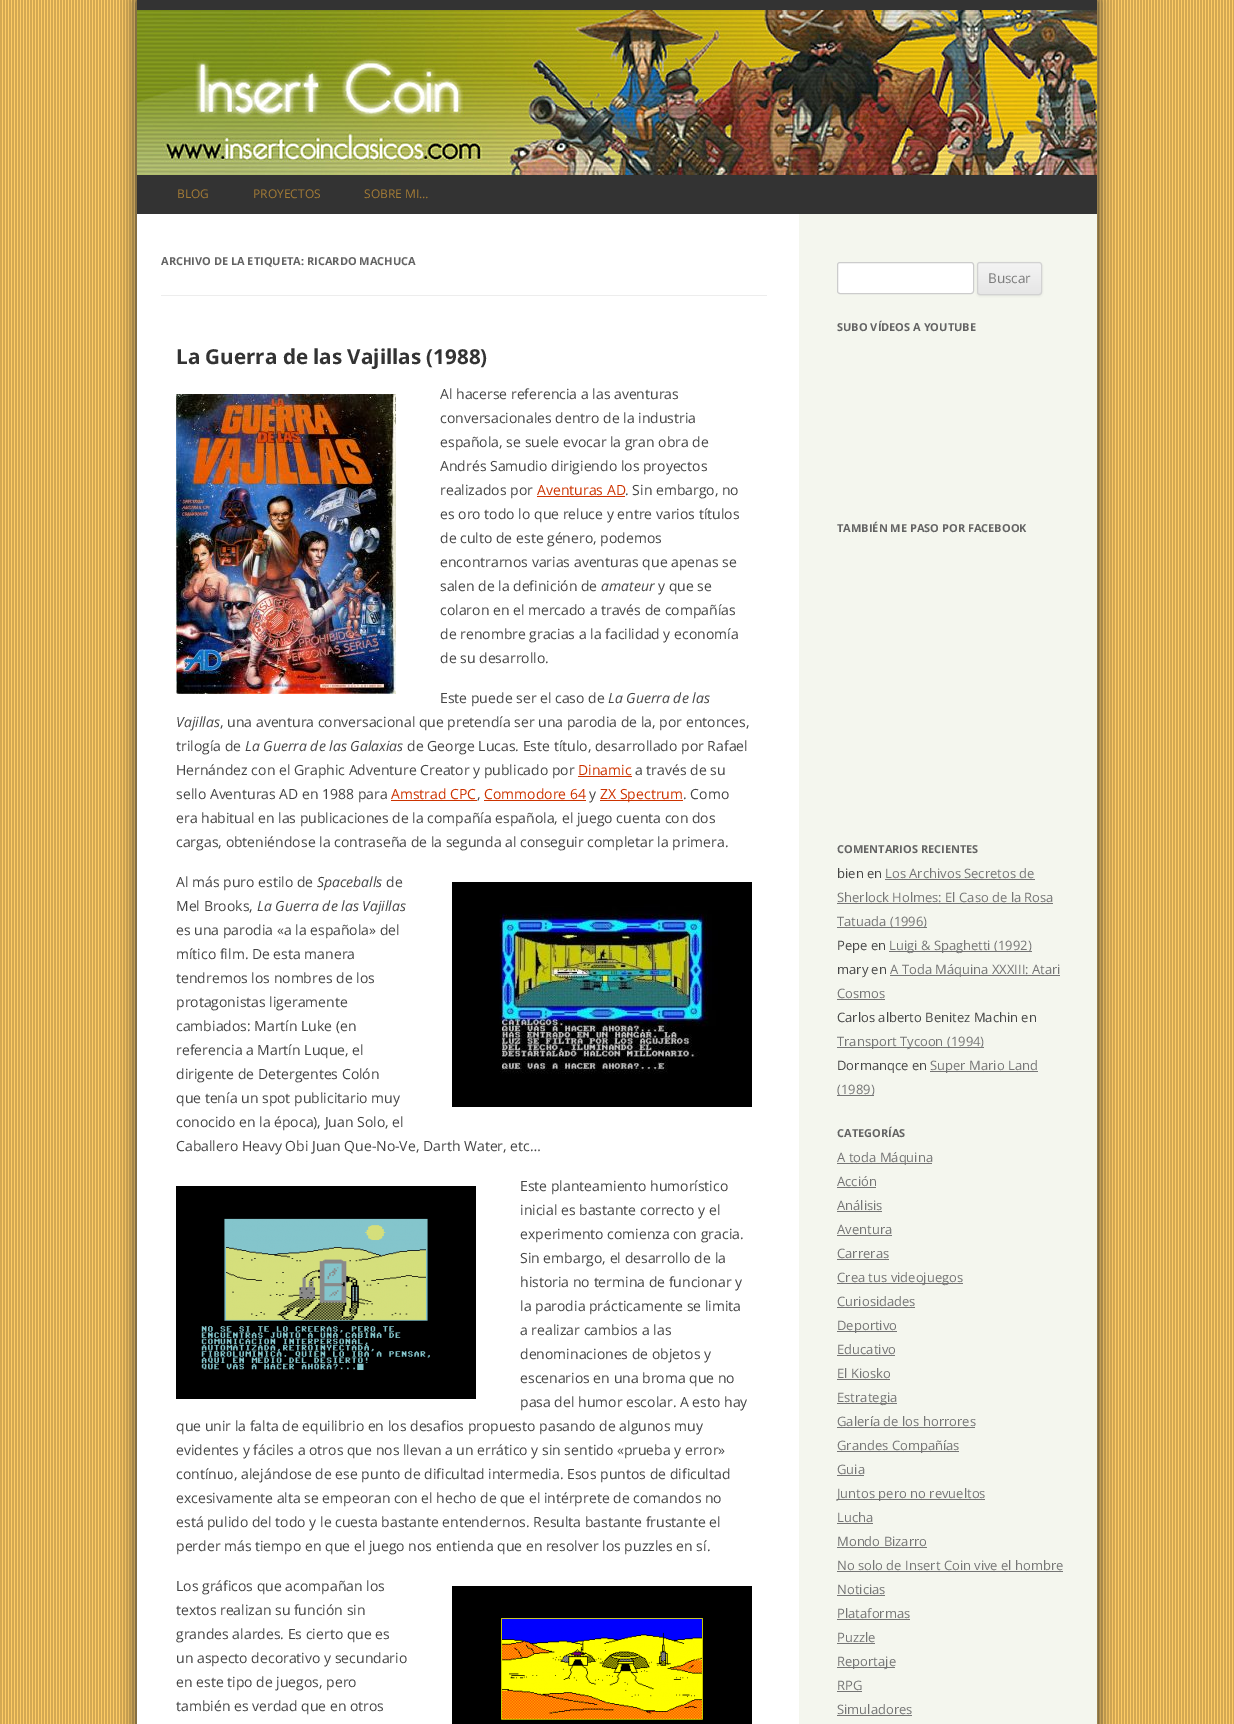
%!PS-Adobe-3.0
%%BoundingBox: 0 0 1234 1724
%%LanguageLevel: 3
%%Pages: 1
%%EndComments
%%BeginProlog
/setink { 3 { 255 div 3 1 roll } repeat setrgbcolor } def
/usefont { [ exch dup neg 0 0 3 -1 roll 0 0 ] selectfont } def
/drawtext { setink usefont moveto show } def
/fillbox { setink rectfill } def
/setalpha { dup .setfillconstantalpha .setstrokeconstantalpha } def
/rrect { 5 dict begin { /r /h /w /y /x } { exch def } forall
  x r add y moveto x w add y 2 copy h add r arct x w add y h add x 1 index r arct
  x y h add x y r arct x y 2 copy exch w add exch r arct closepath end } def
/softshadow { 12 dict begin { /a /b /q /h /w /y /x } { exch def } forall gsave /was 0 def
  9 -2 -9 { dup b mul 4 div /e exch def 1 sub .425 mul 2.718 exch exp 1 add a .99 .min exch div /now exch def
    1 1 now sub 1 was sub div sub setalpha /was now def
    w h .min e 2 mul add 0 gt { x e sub y e sub w e 2 mul add h e 2 mul add
      q e add b .6 mul add w h .min 2 div e add .min 0 .max rrect fill } if } for grestore end } def
/drawimage { 5 dict begin { /h /w /y /x /name } { exch def } forall
  gsave x y translate w h scale
  w h 8 [w 0 0 h 0 0] name (r) file false 3 colorimage grestore end } def
%%EndProlog
%%BeginSetup
<< /PageSize [1234 1724] /PageUsesTransparency true >> setpagedevice
%%EndSetup
%%Page: 1 1
0 .pushpdf14devicefilter
0 1724 translate 1 -1 scale
4 setmiterlimit
0 0 1234 1724 255 255 255 fillbox
(assets/img1.rgb) 0 0 1234 1724 drawimage
51 51 51 setink
137 0 960 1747 0 7.5 1 softshadow
137 214 662 1510 255 255 255 fillbox
137 0 960 214 51 51 51 fillbox
(assets/img2.rgb) 137 10 960 165 drawimage
(BLOG) 177 198 /OpenSans-Regular 12 163 123 53 drawtext
(PROYECTOS) 253 198 /OpenSans-Regular 12 163 123 53 drawtext
(SOBRE MI…) 364 198 /OpenSans-Regular 12 163 123 53 drawtext
161 295 606 1 237 237 237 fillbox
(ARCHIVO DE LA ETIQUETA: RICARDO MACHUCA) 161 265 /OpenSans-Bold 11 99 99 99 drawtext
(La Guerra de las Vajillas \(1988\)) 176 364 /OpenSans-Bold 20.6 51 51 51 drawtext
(assets/img3.rgb) 176 394 220 300 drawimage
(Al hacerse referencia a las aventuras) 440 399 /OpenSans-Regular 14 68 68 68 drawtext
(conversacionales dentro de la industria) 440 423 /OpenSans-Regular 14 68 68 68 drawtext
(española, se suele evocar la gran obra de) 440 447 /OpenSans-Regular 14 68 68 68 drawtext
(Andrés Samudio dirigiendo los proyectos) 440 471 /OpenSans-Regular 14 68 68 68 drawtext
(realizados por) 440 495 /OpenSans-Regular 14 68 68 68 drawtext
(Aventuras AD) 537 495 /OpenSans-Regular 14 204 51 0 drawtext
537 496 88 1 204 51 0 fillbox
(. Sin embargo, no) 625 495 /OpenSans-Regular 14 68 68 68 drawtext
(es oro todo lo que reluce y entre varios títulos) 440 519 /OpenSans-Regular 14 68 68 68 drawtext
(de culto de este género, podemos) 440 543 /OpenSans-Regular 14 68 68 68 drawtext
(encontrarnos varias aventuras que apenas se) 440 567 /OpenSans-Regular 14 68 68 68 drawtext
(salen de la definición de) 440 591 /OpenSans-Regular 14 68 68 68 drawtext
(amateur) 601 591 /OpenSans-Italic 14 68 68 68 drawtext
(y que se) 658 591 /OpenSans-Regular 14 68 68 68 drawtext
(colaron en el mercado a través de compañías) 440 615 /OpenSans-Regular 14 68 68 68 drawtext
(de renombre gracias a la facilidad y economía) 440 639 /OpenSans-Regular 14 68 68 68 drawtext
(de su desarrollo.) 440 663 /OpenSans-Regular 14 68 68 68 drawtext
(Este puede ser el caso de) 440 703 /OpenSans-Regular 14 68 68 68 drawtext
(La Guerra de las) 608 703 /OpenSans-Italic 14 68 68 68 drawtext
(Vajillas) 176 727 /OpenSans-Italic 14 68 68 68 drawtext
(, una aventura conversacional que pretendía ser una parodia de la, por entonces,) 220 727 /OpenSans-Regular 14 68 68 68 drawtext
(trilogía de) 176 751 /OpenSans-Regular 14 68 68 68 drawtext
(La Guerra de las Galaxias) 245 751 /OpenSans-Italic 14 68 68 68 drawtext
(de George Lucas. Este título, desarrollado por Rafael) 407 751 /OpenSans-Regular 14 68 68 68 drawtext
(Hernández con el Graphic Adventure Creator y publicado por) 176 775 /OpenSans-Regular 14 68 68 68 drawtext
(Dinamic) 578 775 /OpenSans-Regular 14 204 51 0 drawtext
578 776 54 1 204 51 0 fillbox
(a través de su) 635 775 /OpenSans-Regular 14 68 68 68 drawtext
(sello Aventuras AD en 1988 para) 176 799 /OpenSans-Regular 14 68 68 68 drawtext
(Amstrad CPC) 391 799 /OpenSans-Regular 14 204 51 0 drawtext
391 800 86 1 204 51 0 fillbox
(,) 477 799 /OpenSans-Regular 14 68 68 68 drawtext
(Commodore 64) 484 799 /OpenSans-Regular 14 204 51 0 drawtext
484 800 102 1 204 51 0 fillbox
(y) 589 799 /OpenSans-Regular 14 68 68 68 drawtext
600 800 83 1 204 51 0 fillbox
(ZX Spectrum) 600 799 /OpenSans-Regular 14 204 51 0 drawtext
(. Como) 683 799 /OpenSans-Regular 14 68 68 68 drawtext
(era habitual en las publicaciones de la compañía española, el juego cuenta con dos) 176 823 /OpenSans-Regular 14 68 68 68 drawtext
(cargas, obteniéndose la contraseña de la segunda al conseguir completar la primera.) 176 847 /OpenSans-Regular 14 68 68 68 drawtext
(Al más puro estilo de) 176 887 /OpenSans-Regular 14 68 68 68 drawtext
(Spaceballs) 317 887 /OpenSans-Italic 14 68 68 68 drawtext
(de) 386 887 /OpenSans-Regular 14 68 68 68 drawtext
(assets/img4.rgb) 452 882 300 225 drawimage
(Mel Brooks,) 176 911 /OpenSans-Regular 14 68 68 68 drawtext
(La Guerra de las Vajillas) 257 911 /OpenSans-Italic 14 68 68 68 drawtext
(es una parodia «a la española» del) 176 935 /OpenSans-Regular 14 68 68 68 drawtext
(mítico film. De esta manera) 176 959 /OpenSans-Regular 14 68 68 68 drawtext
(tendremos los nombres de los) 176 983 /OpenSans-Regular 14 68 68 68 drawtext
(protagonistas ligeramente) 176 1007 /OpenSans-Regular 14 68 68 68 drawtext
(cambiados: Martín Luke \(en) 176 1031 /OpenSans-Regular 14 68 68 68 drawtext
(referencia a Martín Luque, el) 176 1055 /OpenSans-Regular 14 68 68 68 drawtext
(dirigente de Detergentes Colón) 176 1079 /OpenSans-Regular 14 68 68 68 drawtext
(que tenía un spot publicitario muy) 176 1103 /OpenSans-Regular 14 68 68 68 drawtext
(conocido en la época\), Juan Solo, el) 176 1127 /OpenSans-Regular 14 68 68 68 drawtext
(Caballero Heavy Obi Juan Que-No-Ve, Darth Water, etc…) 176 1151 /OpenSans-Regular 14 68 68 68 drawtext
(assets/img5.rgb) 176 1186 300 213 drawimage
(Este planteamiento humorístico) 520 1191 /OpenSans-Regular 14 68 68 68 drawtext
(inicial es bastante correcto y el) 520 1215 /OpenSans-Regular 14 68 68 68 drawtext
(experimento comienza con gracia.) 520 1239 /OpenSans-Regular 14 68 68 68 drawtext
(Sin embargo, el desarrollo de la) 520 1263 /OpenSans-Regular 14 68 68 68 drawtext
(historia no termina de funcionar y) 520 1287 /OpenSans-Regular 14 68 68 68 drawtext
(la parodia prácticamente se limita) 520 1311 /OpenSans-Regular 14 68 68 68 drawtext
(a realizar cambios a las) 520 1335 /OpenSans-Regular 14 68 68 68 drawtext
(denominaciones de objetos y) 520 1359 /OpenSans-Regular 14 68 68 68 drawtext
(escenarios en una broma que no) 520 1383 /OpenSans-Regular 14 68 68 68 drawtext
(pasa del humor escolar. A esto hay) 520 1407 /OpenSans-Regular 14 68 68 68 drawtext
(que unir la falta de equilibrio en los desafios propuesto pasando de algunos muy) 176 1431 /OpenSans-Regular 14 68 68 68 drawtext
(evidentes y fáciles a otros que nos llevan a un errático y sin sentido «prueba y error») 176 1455 /OpenSans-Regular 14 68 68 68 drawtext
(contínuo, alejándose de ese punto de dificultad intermedia. Esos puntos de dificultad) 176 1479 /OpenSans-Regular 14 68 68 68 drawtext
(excesivamente alta se empeoran con el hecho de que el intérprete de comandos no) 176 1503 /OpenSans-Regular 14 68 68 68 drawtext
(está pulido del todo y le cuesta bastante entendernos. Resulta bastante frustante el) 176 1527 /OpenSans-Regular 14 68 68 68 drawtext
(perder más tiempo en que el juego nos entienda que en resolver los puzzles en sí.) 176 1551 /OpenSans-Regular 14 68 68 68 drawtext
(Los gráficos que acompañan los) 176 1591 /OpenSans-Regular 14 68 68 68 drawtext
(assets/img6.rgb) 452 1586 300 138 drawimage
(textos realizan su función sin) 176 1615 /OpenSans-Regular 14 68 68 68 drawtext
(grandes alardes. Es cierto que es) 176 1639 /OpenSans-Regular 14 68 68 68 drawtext
(un aspecto decorativo y secundario) 176 1663 /OpenSans-Regular 14 68 68 68 drawtext
(en este tipo de juegos, pero) 176 1687 /OpenSans-Regular 14 68 68 68 drawtext
(también es verdad que en otros) 176 1711 /OpenSans-Regular 14 68 68 68 drawtext
799 214 298 1510 244 246 238 fillbox
255 255 255 setink
837.5 262.5 136 31 2.5 rrect gsave fill grestore
204 204 204 setink
stroke
64 64 64 setink
977 263 65 33 3 1 0.1 softshadow
gsave
977 262 65 33 3 rrect clip newpath
gsave 977 263 moveto 1042 263 lineto 1042 294 lineto 977 294 lineto closepath clip newpath
<< /ShadingType 2 /ColorSpace /DeviceRGB /Coords [1010 263 1010 294] /Extend [true true] /Function << /FunctionType 2 /Domain [0 1] /C0 [0.957 0.957 0.957] /C1 [0.902 0.902 0.902] /N 1 >> >> shfill grestore
grestore
210 210 210 setink
977.5 262.5 64 32 2.5 rrect stroke
(Buscar) 988 283 /OpenSans-Regular 13.5 124 124 124 drawtext
(SUBO VÍDEOS A YOUTUBE) 837 331 /OpenSans-Bold 11 99 99 99 drawtext
(TAMBIÉN ME PASO POR FACEBOOK) 837 532 /OpenSans-Bold 11 99 99 99 drawtext
(COMENTARIOS RECIENTES) 837 853 /OpenSans-Bold 11 99 99 99 drawtext
(bien en) 837 878 /OpenSans-Regular 13 68 68 68 drawtext
(Los Archivos Secretos de) 885 878 /OpenSans-Regular 13 117 117 117 drawtext
885 879 150 1 117 117 117 fillbox
(Sherlock Holmes: El Caso de la Rosa) 837 902 /OpenSans-Regular 13 117 117 117 drawtext
837 903 216 1 117 117 117 fillbox
837 927 90 1 117 117 117 fillbox
(Tatuada \(1996\)) 837 926 /OpenSans-Regular 13 117 117 117 drawtext
(Pepe en) 837 950 /OpenSans-Regular 13 68 68 68 drawtext
889 951 143 1 117 117 117 fillbox
(Luigi & Spaghetti \(1992\)) 889 950 /OpenSans-Regular 13 117 117 117 drawtext
(mary en) 837 974 /OpenSans-Regular 13 68 68 68 drawtext
890 975 170 1 117 117 117 fillbox
(A Toda Máquina XXXIII: Atari) 890 974 /OpenSans-Regular 13 117 117 117 drawtext
(Cosmos) 837 998 /OpenSans-Regular 13 117 117 117 drawtext
837 999 48 1 117 117 117 fillbox
(Carlos alberto Benitez Machin en) 837 1022 /OpenSans-Regular 13 68 68 68 drawtext
837 1047 147 1 117 117 117 fillbox
(Transport Tycoon \(1994\)) 837 1046 /OpenSans-Regular 13 117 117 117 drawtext
(Dormanqce en) 837 1070 /OpenSans-Regular 13 68 68 68 drawtext
930 1071 108 1 117 117 117 fillbox
(Super Mario Land) 930 1070 /OpenSans-Regular 13 117 117 117 drawtext
837 1095 37 1 117 117 117 fillbox
(\(1989\)) 837 1094 /OpenSans-Regular 13 117 117 117 drawtext
(CATEGORÍAS) 837 1137 /OpenSans-Bold 11 99 99 99 drawtext
837 1163 95 1 117 117 117 fillbox
(A toda Máquina) 837 1162 /OpenSans-Regular 13 117 117 117 drawtext
(Acción) 837 1186 /OpenSans-Regular 13 117 117 117 drawtext
837 1187 39 1 117 117 117 fillbox
(Análisis) 837 1210 /OpenSans-Regular 13 117 117 117 drawtext
837 1211 45 1 117 117 117 fillbox
(Aventura) 837 1234 /OpenSans-Regular 13 117 117 117 drawtext
837 1235 55 1 117 117 117 fillbox
(Carreras) 837 1258 /OpenSans-Regular 13 117 117 117 drawtext
837 1259 52 1 117 117 117 fillbox
837 1283 126 1 117 117 117 fillbox
(Crea tus videojuegos) 837 1282 /OpenSans-Regular 13 117 117 117 drawtext
(Curiosidades) 837 1306 /OpenSans-Regular 13 117 117 117 drawtext
837 1307 78 1 117 117 117 fillbox
837 1331 60 1 117 117 117 fillbox
(Deportivo) 837 1330 /OpenSans-Regular 13 117 117 117 drawtext
(Educativo) 837 1354 /OpenSans-Regular 13 117 117 117 drawtext
837 1355 58 1 117 117 117 fillbox
(El Kiosko) 837 1378 /OpenSans-Regular 13 117 117 117 drawtext
837 1379 53 1 117 117 117 fillbox
837 1403 60 1 117 117 117 fillbox
(Estrategia) 837 1402 /OpenSans-Regular 13 117 117 117 drawtext
(Galería de los horrores) 837 1426 /OpenSans-Regular 13 117 117 117 drawtext
837 1427 138 1 117 117 117 fillbox
837 1451 122 1 117 117 117 fillbox
(Grandes Compañías) 837 1450 /OpenSans-Regular 13 117 117 117 drawtext
(Guia) 837 1474 /OpenSans-Regular 13 117 117 117 drawtext
837 1475 27 1 117 117 117 fillbox
837 1499 148 1 117 117 117 fillbox
(Juntos pero no revueltos) 837 1498 /OpenSans-Regular 13 117 117 117 drawtext
(Lucha) 837 1522 /OpenSans-Regular 13 117 117 117 drawtext
837 1523 36 1 117 117 117 fillbox
(Mondo Bizarro) 837 1546 /OpenSans-Regular 13 117 117 117 drawtext
837 1547 90 1 117 117 117 fillbox
(No solo de Insert Coin vive el hombre) 837 1570 /OpenSans-Regular 13 117 117 117 drawtext
837 1571 226 1 117 117 117 fillbox
(Noticias) 837 1594 /OpenSans-Regular 13 117 117 117 drawtext
837 1595 48 1 117 117 117 fillbox
(Plataformas) 837 1618 /OpenSans-Regular 13 117 117 117 drawtext
837 1619 73 1 117 117 117 fillbox
(Puzzle) 837 1642 /OpenSans-Regular 13 117 117 117 drawtext
837 1643 38 1 117 117 117 fillbox
837 1667 58 1 117 117 117 fillbox
(Reportaje) 837 1666 /OpenSans-Regular 13 117 117 117 drawtext
(RPG) 837 1690 /OpenSans-Regular 13 117 117 117 drawtext
837 1691 25 1 117 117 117 fillbox
(Simuladores) 837 1714 /OpenSans-Regular 13 117 117 117 drawtext
837 1715 75 1 117 117 117 fillbox
.poppdf14devicefilter showpage
%%EOF
